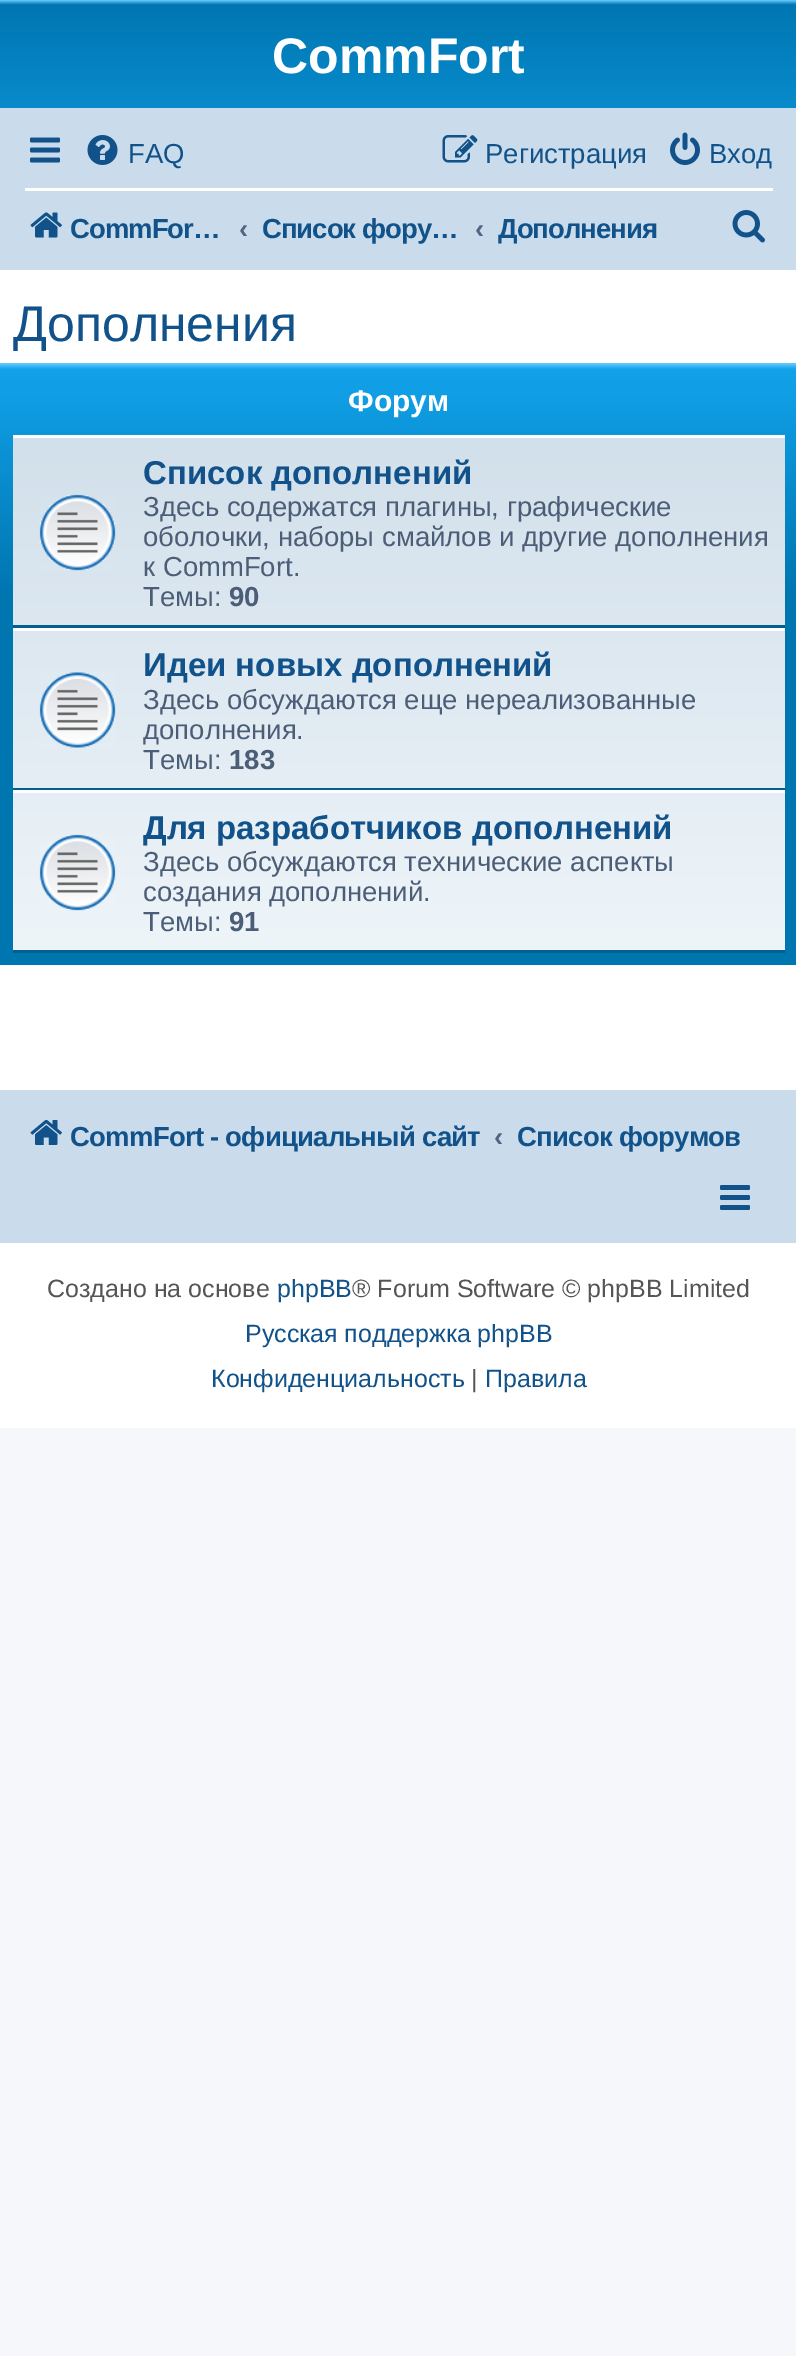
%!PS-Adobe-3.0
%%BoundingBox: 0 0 796 2356
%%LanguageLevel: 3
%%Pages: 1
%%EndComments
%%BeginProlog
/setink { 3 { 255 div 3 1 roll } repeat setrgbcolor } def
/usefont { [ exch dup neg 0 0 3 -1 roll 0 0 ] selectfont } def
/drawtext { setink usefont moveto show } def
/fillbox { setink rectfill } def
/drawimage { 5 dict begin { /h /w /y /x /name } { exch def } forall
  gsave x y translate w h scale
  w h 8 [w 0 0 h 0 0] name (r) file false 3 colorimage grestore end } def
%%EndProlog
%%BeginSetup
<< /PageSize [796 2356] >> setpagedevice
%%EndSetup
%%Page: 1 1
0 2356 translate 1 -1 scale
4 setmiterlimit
0 0 796 2356 245 247 250 fillbox
0 270 796 1158 255 255 255 fillbox
gsave 0 0 moveto 796 0 lineto 796 108 lineto 0 108 lineto closepath clip newpath
<< /ShadingType 2 /ColorSpace /DeviceRGB /Coords [399 0 399 230] /Extend [true true] /Function << /FunctionType 3 /Domain [0 1] /Functions [<< /FunctionType 2 /Domain [0 1] /C0 [0.416 0.808 1] /C1 [0 0.463 0.694] /N 1 >> << /FunctionType 2 /Domain [0 1] /C0 [0 0.463 0.694] /C1 [0.071 0.639 0.922] /N 1 >>] /Bounds [0.02] /Encode [0 1 0 1] >> >> shfill grestore
(CommFort) 272 73 /LiberationSans-Bold 50 255 255 255 drawtext
0 108 796 162 202 220 235 fillbox
(assets/img1.rgb) 30 137 30 26 drawimage
(assets/img2.rgb) 87 135 31 30 drawimage
(FAQ) 128 163 /LiberationSans-Regular 27.5 16 82 137 drawtext
(assets/img3.rgb) 442 135 36 28 drawimage
(Регистрация) 485 163 /LiberationSans-Regular 27.5 16 82 137 drawtext
(assets/img4.rgb) 670 132 30 33 drawimage
(Вход) 709 163 /LiberationSans-Regular 27.5 16 82 137 drawtext
25 188 748 3 255 255 255 fillbox
(assets/img5.rgb) 30 212 32 26 drawimage
/LiberationSans-Bold 27.5 usefont
16 82 137 setink
70 238 moveto -1 0 (CommFor…) ashow
(‹) 239 238 /LiberationSans-Bold 27.5 83 100 130 drawtext
gsave
263 198 200 60 rectclip
16 82 137 setink
262 238 moveto -1 0 (Список фору…) ashow
grestore
(‹) 475 238 /LiberationSans-Bold 27.5 83 100 130 drawtext
16 82 137 setink
498 238 moveto -1 0 (Дополнения) ashow
(assets/img6.rgb) 732 210 33 33 drawimage
(Дополнения) 13 341 /LiberationSans-Regular 50 16 82 137 drawtext
gsave 0 363 moveto 796 363 lineto 796 965 lineto 0 965 lineto closepath clip newpath
<< /ShadingType 2 /ColorSpace /DeviceRGB /Coords [399 363 399 965] /Extend [true true] /Function << /FunctionType 3 /Domain [0 1] /Functions [<< /FunctionType 2 /Domain [0 1] /C0 [0.416 0.808 1] /C1 [0.071 0.639 0.922] /N 1 >> << /FunctionType 2 /Domain [0 1] /C0 [0.071 0.639 0.922] /C1 [0 0.463 0.694] /N 1 >> << /FunctionType 2 /Domain [0 1] /C0 [0 0.463 0.694] /C1 [0 0.463 0.694] /N 1 >>] /Bounds [0.01 0.38] /Encode [0 1 0 1 0 1] >> >> shfill grestore
(Форум) 348 411 /LiberationSans-Bold 30 255 255 255 drawtext
gsave 13 438 moveto 785 438 lineto 785 950 lineto 13 950 lineto closepath clip newpath
<< /ShadingType 2 /ColorSpace /DeviceRGB /Coords [399 435 399 953] /Extend [true true] /Function << /FunctionType 2 /Domain [0 1] /C0 [0.824 0.878 0.922] /C1 [0.933 0.961 0.976] /N 1 >> >> shfill grestore
13 435 772 3 255 255 255 fillbox
13 625 772 3 0 96 143 fillbox
(assets/img7.rgb) 39 494 77 77 drawimage
(Список дополнений) 143 484 /LiberationSans-Bold 33 16 82 137 drawtext
(Здесь содержатся плагины, графические) 143 516 /LiberationSans-Regular 27.5 76 93 119 drawtext
(оболочки, наборы смайлов и другие дополнения) 143 546 /LiberationSans-Regular 27.5 76 93 119 drawtext
(к CommFort.) 143 576 /LiberationSans-Regular 27.5 76 93 119 drawtext
(Темы:) 143 606 /LiberationSans-Regular 27.5 76 93 119 drawtext
(90) 229 606 /LiberationSans-Bold 27.5 76 93 119 drawtext
13 628 772 3 255 255 255 fillbox
13 788 772 2 0 96 143 fillbox
(assets/img8.rgb) 39 672 77 76 drawimage
(Идеи новых дополнений) 143 676 /LiberationSans-Bold 33 16 82 137 drawtext
(Здесь обсуждаются еще нереализованные) 143 709 /LiberationSans-Regular 27.5 76 93 119 drawtext
(дополнения.) 143 739 /LiberationSans-Regular 27.5 76 93 119 drawtext
(Темы:) 143 769 /LiberationSans-Regular 27.5 76 93 119 drawtext
(183) 229 769 /LiberationSans-Bold 27.5 76 93 119 drawtext
13 790 772 3 255 255 255 fillbox
13 950 772 3 0 96 143 fillbox
(assets/img9.rgb) 39 834 77 77 drawimage
(Для разработчиков дополнений) 143 839 /LiberationSans-Bold 33 16 82 137 drawtext
(Здесь обсуждаются технические аспекты) 143 871 /LiberationSans-Regular 27.5 76 93 119 drawtext
(создания дополнений.) 143 901 /LiberationSans-Regular 27.5 76 93 119 drawtext
(Темы:) 143 931 /LiberationSans-Regular 27.5 76 93 119 drawtext
(91) 229 931 /LiberationSans-Bold 27.5 76 93 119 drawtext
0 1090 796 153 202 220 235 fillbox
(assets/img10.rgb) 30 1119 32 26 drawimage
16 82 137 setink
70 1146 moveto -0.75 0 (CommFort - официальный сайт) ashow
(‹) 494 1146 /LiberationSans-Bold 27.5 83 100 130 drawtext
16 82 137 setink
517 1146 moveto -0.75 0 (Список форумов) ashow
(assets/img11.rgb) 720 1185 30 25 drawimage
(Создано на основе) 47 1297 /LiberationSans-Regular 25 85 85 85 drawtext
(phpBB) 277 1297 /LiberationSans-Regular 25 16 82 137 drawtext
(® Forum Software © phpBB Limited) 352 1297 /LiberationSans-Regular 25 85 85 85 drawtext
(Русская поддержка phpBB) 245 1342 /LiberationSans-Regular 25 16 82 137 drawtext
(Конфиденциальность) 211 1387 /LiberationSans-Regular 25 16 82 137 drawtext
(|) 471 1387 /LiberationSans-Regular 25 85 85 85 drawtext
(Правила) 485 1387 /LiberationSans-Regular 25 16 82 137 drawtext
showpage
%%EOF
